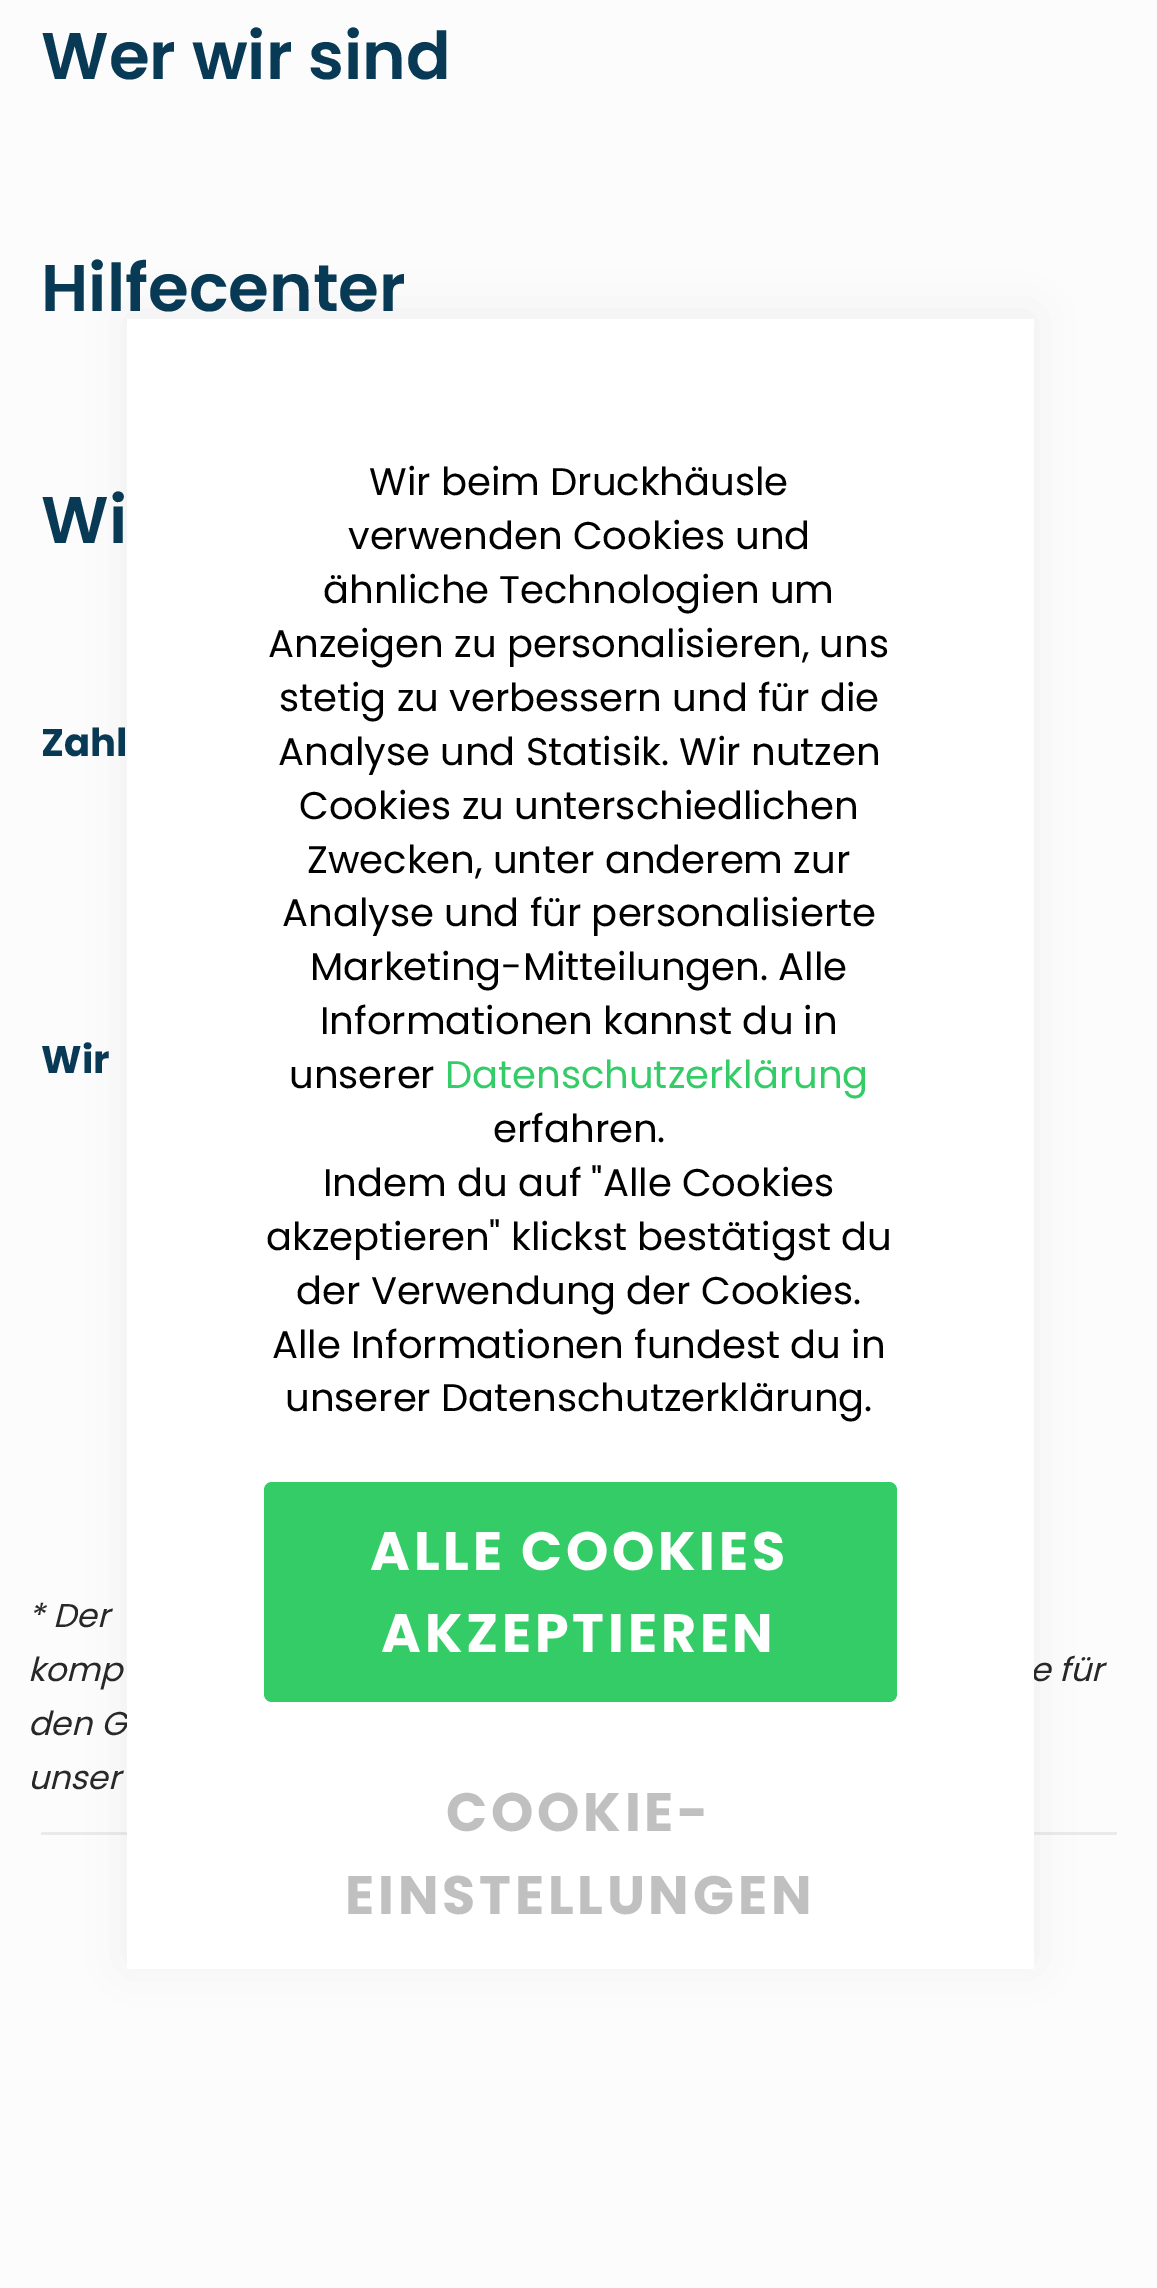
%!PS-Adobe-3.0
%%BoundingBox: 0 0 1157 2288
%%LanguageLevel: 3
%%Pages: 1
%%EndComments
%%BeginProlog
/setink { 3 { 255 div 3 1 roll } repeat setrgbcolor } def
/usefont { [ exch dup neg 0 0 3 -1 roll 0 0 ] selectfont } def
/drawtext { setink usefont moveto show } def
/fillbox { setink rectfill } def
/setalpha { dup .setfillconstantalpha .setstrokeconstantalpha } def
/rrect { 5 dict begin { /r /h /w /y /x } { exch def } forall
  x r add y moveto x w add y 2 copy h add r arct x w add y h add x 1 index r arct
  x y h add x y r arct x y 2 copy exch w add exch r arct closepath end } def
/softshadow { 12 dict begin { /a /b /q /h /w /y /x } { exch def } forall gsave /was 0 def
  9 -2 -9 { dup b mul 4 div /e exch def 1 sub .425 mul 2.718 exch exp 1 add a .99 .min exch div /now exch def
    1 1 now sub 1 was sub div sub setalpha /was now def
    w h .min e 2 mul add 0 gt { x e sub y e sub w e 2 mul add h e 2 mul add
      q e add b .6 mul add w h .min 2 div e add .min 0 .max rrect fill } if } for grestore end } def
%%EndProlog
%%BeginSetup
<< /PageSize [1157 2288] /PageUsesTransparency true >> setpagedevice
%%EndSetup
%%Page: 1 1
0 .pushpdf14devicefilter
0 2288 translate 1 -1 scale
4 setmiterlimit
0 0 1157 2288 252 252 252 fillbox
(Wer wir sind) 41 79 /Poppins-SemiBold 66 8 58 86 drawtext
(Hilfecenter) 41 311 /Poppins-SemiBold 66 8 58 86 drawtext
(Wi) 41 543 /Poppins-SemiBold 66 8 58 86 drawtext
(Zahl) 41 756 /Poppins-Bold 38.5 8 58 86 drawtext
(Wir) 41 1073 /Poppins-Bold 38.5 8 58 86 drawtext
(* Der) 28 1627 /Poppins-Italic 33 40 40 40 drawtext
(komp) 28 1681 /Poppins-Italic 33 40 40 40 drawtext
(e für) 1030 1681 /Poppins-Italic 33 40 40 40 drawtext
(den G) 28 1735 /Poppins-Italic 33 40 40 40 drawtext
(unser) 28 1789 /Poppins-Italic 33 40 40 40 drawtext
41 1832 1076 3 234 234 234 fillbox
0 0 0 setink
127 314 907 1650 0 25 0.06 softshadow
127 319 907 1650 255 255 255 fillbox
(Wir beim Druckhäusle) 369 495 /Poppins-Regular 38.5 0 0 0 drawtext
(verwenden Cookies und) 348 549 /Poppins-Regular 38.5 0 0 0 drawtext
(ähnliche Technologien um) 323 603 /Poppins-Regular 38.5 0 0 0 drawtext
(Anzeigen zu personalisieren, uns) 268 657 /Poppins-Regular 38.5 0 0 0 drawtext
(stetig zu verbessern und für die) 279 711 /Poppins-Regular 38.5 0 0 0 drawtext
(Analyse und Statisik. Wir nutzen) 278 765 /Poppins-Regular 38.5 0 0 0 drawtext
(Cookies zu unterschiedlichen) 299 819 /Poppins-Regular 38.5 0 0 0 drawtext
(Zwecken, unter anderem zur) 307 873 /Poppins-Regular 38.5 0 0 0 drawtext
(Analyse und für personalisierte) 282 926 /Poppins-Regular 38.5 0 0 0 drawtext
(Marketing-Mitteilungen. Alle) 310 980 /Poppins-Regular 38.5 0 0 0 drawtext
(Informationen kannst du in) 320 1034 /Poppins-Regular 38.5 0 0 0 drawtext
(unserer) 289 1088 /Poppins-Regular 38.5 0 0 0 drawtext
(Datenschutzerklärung) 445 1088 /Poppins-Regular 38.5 51 204 102 drawtext
(erfahren.) 493 1142 /Poppins-Regular 38.5 0 0 0 drawtext
(Indem du auf "Alle Cookies) 323 1196 /Poppins-Regular 38.5 0 0 0 drawtext
(akzeptieren" klickst bestätigst du) 266 1250 /Poppins-Regular 38.5 0 0 0 drawtext
(der Verwendung der Cookies.) 296 1304 /Poppins-Regular 38.5 0 0 0 drawtext
(Alle Informationen fundest du in) 272 1358 /Poppins-Regular 38.5 0 0 0 drawtext
(unserer Datenschutzerklärung.) 285 1411 /Poppins-Regular 38.5 0 0 0 drawtext
51 204 102 setink
264 1482 633 220 8 rrect fill
/Poppins-Bold 54 usefont
255 255 255 setink
370 1570 moveto 3.75 0 (ALLE COOKIES) ashow
381 1652 moveto 3.75 0 (AKZEPTIEREN) ashow
192 192 192 setink
446 1831 moveto 3.75 0 (COOKIE-) ashow
345 1914 moveto 3.75 0 (EINSTELLUNGEN) ashow
.poppdf14devicefilter showpage
%%EOF
